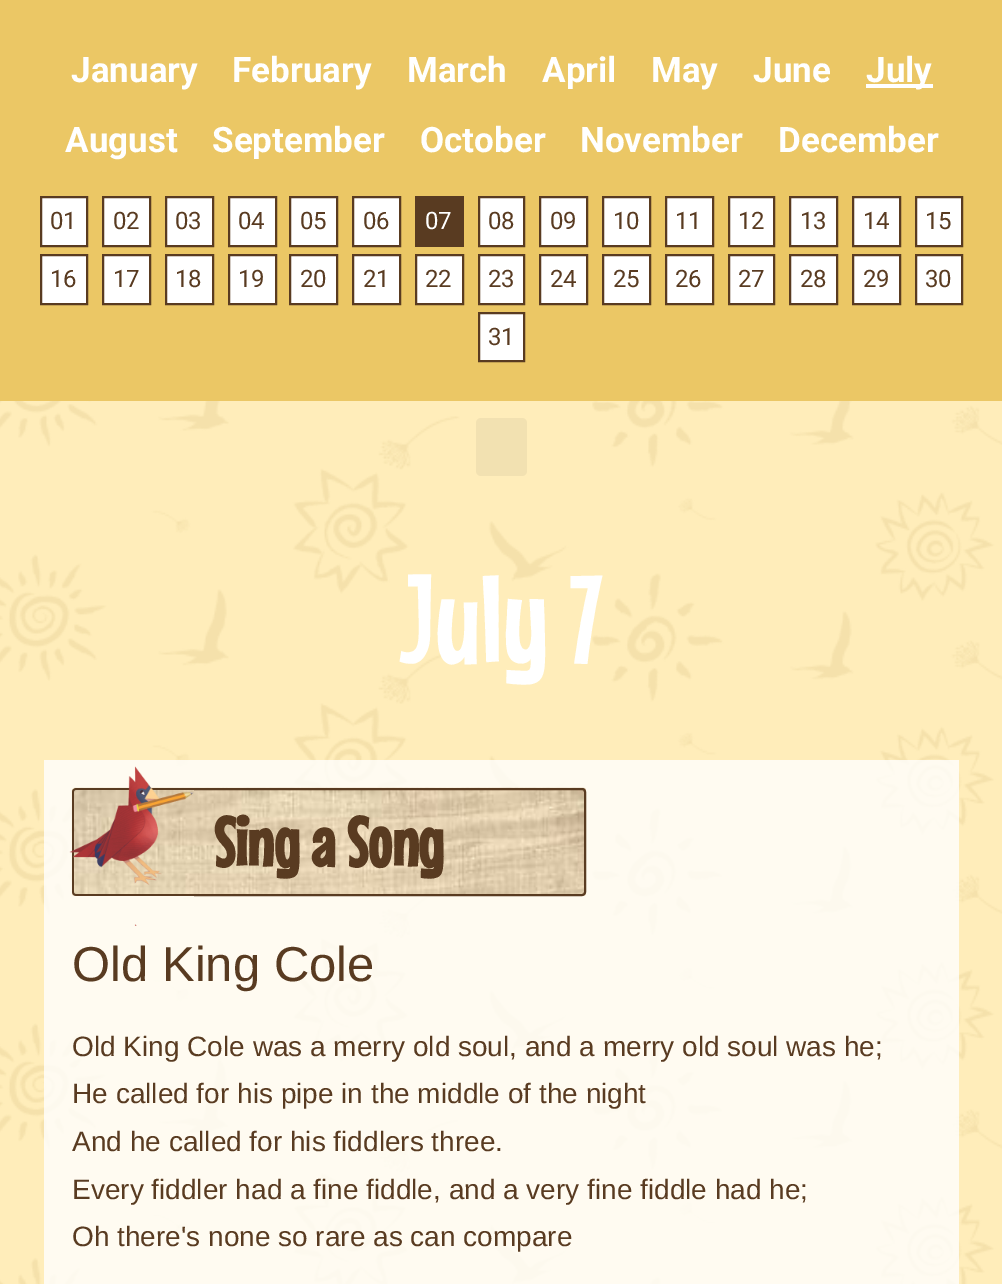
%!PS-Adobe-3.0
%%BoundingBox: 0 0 1002 1284
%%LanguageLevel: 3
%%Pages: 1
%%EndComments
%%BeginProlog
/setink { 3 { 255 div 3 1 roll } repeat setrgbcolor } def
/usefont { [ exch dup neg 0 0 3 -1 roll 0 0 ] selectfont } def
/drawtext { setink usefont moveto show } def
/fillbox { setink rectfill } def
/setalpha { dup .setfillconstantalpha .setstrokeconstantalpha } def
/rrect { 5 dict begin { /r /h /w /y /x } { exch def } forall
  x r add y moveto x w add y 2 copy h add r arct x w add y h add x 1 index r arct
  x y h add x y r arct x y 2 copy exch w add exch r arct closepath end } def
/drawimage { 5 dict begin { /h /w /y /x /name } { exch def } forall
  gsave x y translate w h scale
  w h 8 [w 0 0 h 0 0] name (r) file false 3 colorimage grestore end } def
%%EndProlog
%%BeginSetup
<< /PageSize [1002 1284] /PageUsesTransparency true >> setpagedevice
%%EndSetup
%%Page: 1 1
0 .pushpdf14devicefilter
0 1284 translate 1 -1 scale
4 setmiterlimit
0 0 1002 1284 255 237 186 fillbox
(assets/img1.rgb) 0 401 1002 883 drawimage
0 0 1002 401 235 199 101 fillbox
(January) 71 82 /Roboto-Bold 35 255 255 255 drawtext
(February) 232 82 /Roboto-Bold 35 255 255 255 drawtext
(March) 407 82 /Roboto-Bold 35 255 255 255 drawtext
(April) 542 82 /Roboto-Bold 35 255 255 255 drawtext
(May) 651 82 /Roboto-Bold 35 255 255 255 drawtext
(June) 753 82 /Roboto-Bold 35 255 255 255 drawtext
866 84 67 4 255 255 255 fillbox
(July) 866 82 /Roboto-Bold 35 255 255 255 drawtext
(August) 65 152 /Roboto-Bold 35 255 255 255 drawtext
(September) 212 152 /Roboto-Bold 35 255 255 255 drawtext
(October) 420 152 /Roboto-Bold 35 255 255 255 drawtext
(November) 580 152 /Roboto-Bold 35 255 255 255 drawtext
(December) 778 152 /Roboto-Bold 35 255 255 255 drawtext
41 197 moveto 87 197 lineto 87 246 lineto 41 246 lineto closepath gsave fill grestore
89 59 33 setink
2 setlinewidth
stroke
(01) 50 229 /Roboto-Regular 24 89 59 33 drawtext
255 255 255 setink
103 197 moveto 150 197 lineto 150 246 lineto 103 246 lineto closepath gsave fill grestore
89 59 33 setink
stroke
(02) 113 229 /Roboto-Regular 24 89 59 33 drawtext
255 255 255 setink
166 197 moveto 213 197 lineto 213 246 lineto 166 246 lineto closepath gsave fill grestore
89 59 33 setink
stroke
(03) 175 229 /Roboto-Regular 24 89 59 33 drawtext
255 255 255 setink
229 197 moveto 276 197 lineto 276 246 lineto 229 246 lineto closepath gsave fill grestore
89 59 33 setink
stroke
(04) 238 229 /Roboto-Regular 24 89 59 33 drawtext
255 255 255 setink
290 197 moveto 337 197 lineto 337 246 lineto 290 246 lineto closepath gsave fill grestore
89 59 33 setink
stroke
(05) 300 229 /Roboto-Regular 24 89 59 33 drawtext
255 255 255 setink
353 197 moveto 400 197 lineto 400 246 lineto 353 246 lineto closepath gsave fill grestore
89 59 33 setink
stroke
(06) 363 229 /Roboto-Regular 24 89 59 33 drawtext
415 196 49 51 89 59 33 fillbox
(07) 425 229 /Roboto-Regular 24 255 255 255 drawtext
479 197 moveto 524 197 lineto 524 246 lineto 479 246 lineto closepath gsave fill grestore
89 59 33 setink
stroke
(08) 488 229 /Roboto-Regular 24 89 59 33 drawtext
255 255 255 setink
540 197 moveto 587 197 lineto 587 246 lineto 540 246 lineto closepath gsave fill grestore
89 59 33 setink
stroke
(09) 550 229 /Roboto-Regular 24 89 59 33 drawtext
255 255 255 setink
603 197 moveto 650 197 lineto 650 246 lineto 603 246 lineto closepath gsave fill grestore
89 59 33 setink
stroke
(10) 613 229 /Roboto-Regular 24 89 59 33 drawtext
255 255 255 setink
666 197 moveto 713 197 lineto 713 246 lineto 666 246 lineto closepath gsave fill grestore
89 59 33 setink
stroke
(11) 675 229 /Roboto-Regular 24 89 59 33 drawtext
255 255 255 setink
729 197 moveto 774 197 lineto 774 246 lineto 729 246 lineto closepath gsave fill grestore
89 59 33 setink
stroke
(12) 738 229 /Roboto-Regular 24 89 59 33 drawtext
255 255 255 setink
790 197 moveto 837 197 lineto 837 246 lineto 790 246 lineto closepath gsave fill grestore
89 59 33 setink
stroke
(13) 800 229 /Roboto-Regular 24 89 59 33 drawtext
255 255 255 setink
853 197 moveto 900 197 lineto 900 246 lineto 853 246 lineto closepath gsave fill grestore
89 59 33 setink
stroke
(14) 863 229 /Roboto-Regular 24 89 59 33 drawtext
255 255 255 setink
916 197 moveto 962 197 lineto 962 246 lineto 916 246 lineto closepath gsave fill grestore
89 59 33 setink
stroke
(15) 925 229 /Roboto-Regular 24 89 59 33 drawtext
255 255 255 setink
41 255 moveto 87 255 lineto 87 304 lineto 41 304 lineto closepath gsave fill grestore
89 59 33 setink
stroke
(16) 50 287 /Roboto-Regular 24 89 59 33 drawtext
255 255 255 setink
103 255 moveto 150 255 lineto 150 304 lineto 103 304 lineto closepath gsave fill grestore
89 59 33 setink
stroke
(17) 113 287 /Roboto-Regular 24 89 59 33 drawtext
255 255 255 setink
166 255 moveto 213 255 lineto 213 304 lineto 166 304 lineto closepath gsave fill grestore
89 59 33 setink
stroke
(18) 175 287 /Roboto-Regular 24 89 59 33 drawtext
255 255 255 setink
229 255 moveto 276 255 lineto 276 304 lineto 229 304 lineto closepath gsave fill grestore
89 59 33 setink
stroke
(19) 238 287 /Roboto-Regular 24 89 59 33 drawtext
255 255 255 setink
290 255 moveto 337 255 lineto 337 304 lineto 290 304 lineto closepath gsave fill grestore
89 59 33 setink
stroke
(20) 300 287 /Roboto-Regular 24 89 59 33 drawtext
255 255 255 setink
353 255 moveto 400 255 lineto 400 304 lineto 353 304 lineto closepath gsave fill grestore
89 59 33 setink
stroke
(21) 363 287 /Roboto-Regular 24 89 59 33 drawtext
255 255 255 setink
416 255 moveto 463 255 lineto 463 304 lineto 416 304 lineto closepath gsave fill grestore
89 59 33 setink
stroke
(22) 425 287 /Roboto-Regular 24 89 59 33 drawtext
255 255 255 setink
479 255 moveto 524 255 lineto 524 304 lineto 479 304 lineto closepath gsave fill grestore
89 59 33 setink
stroke
(23) 488 287 /Roboto-Regular 24 89 59 33 drawtext
255 255 255 setink
540 255 moveto 587 255 lineto 587 304 lineto 540 304 lineto closepath gsave fill grestore
89 59 33 setink
stroke
(24) 550 287 /Roboto-Regular 24 89 59 33 drawtext
255 255 255 setink
603 255 moveto 650 255 lineto 650 304 lineto 603 304 lineto closepath gsave fill grestore
89 59 33 setink
stroke
(25) 613 287 /Roboto-Regular 24 89 59 33 drawtext
255 255 255 setink
666 255 moveto 713 255 lineto 713 304 lineto 666 304 lineto closepath gsave fill grestore
89 59 33 setink
stroke
(26) 675 287 /Roboto-Regular 24 89 59 33 drawtext
255 255 255 setink
729 255 moveto 774 255 lineto 774 304 lineto 729 304 lineto closepath gsave fill grestore
89 59 33 setink
stroke
(27) 738 287 /Roboto-Regular 24 89 59 33 drawtext
255 255 255 setink
790 255 moveto 837 255 lineto 837 304 lineto 790 304 lineto closepath gsave fill grestore
89 59 33 setink
stroke
(28) 800 287 /Roboto-Regular 24 89 59 33 drawtext
255 255 255 setink
853 255 moveto 900 255 lineto 900 304 lineto 853 304 lineto closepath gsave fill grestore
89 59 33 setink
stroke
(29) 863 287 /Roboto-Regular 24 89 59 33 drawtext
255 255 255 setink
916 255 moveto 962 255 lineto 962 304 lineto 916 304 lineto closepath gsave fill grestore
89 59 33 setink
stroke
(30) 925 287 /Roboto-Regular 24 89 59 33 drawtext
255 255 255 setink
479 313 moveto 524 313 lineto 524 361 lineto 479 361 lineto closepath gsave fill grestore
89 59 33 setink
stroke
(31) 488 345 /Roboto-Regular 24 89 59 33 drawtext
242 225 177 setink
476 418 51 58 5 rrect fill
(July 7) 399 663 /MouseMemoirs-Regular 126 255 255 255 drawtext
0.8 setalpha
44 760 915 524 255 255 255 fillbox
1 setalpha
(assets/img2.rgb) 71 787 516 109 drawimage
89 59 33 setink
73 789 512 106 3 rrect stroke
(assets/img3.rgb) 69 766 125 160 drawimage
(Sing a Song) 214 867 /MouseMemoirs-Bold 70 89 59 33 drawtext
(Old King Cole) 72 981 /LiberationSans-Regular 49 89 59 33 drawtext
(Old King Cole was a merry old soul, and a merry old soul was he;) 72 1056 /LiberationSans-Regular 28 89 59 33 drawtext
(He called for his pipe in the middle of the night) 72 1103 /LiberationSans-Regular 28 89 59 33 drawtext
(And he called for his fiddlers three.) 72 1151 /LiberationSans-Regular 28 89 59 33 drawtext
(Every fiddler had a fine fiddle, and a very fine fiddle had he;) 72 1199 /LiberationSans-Regular 28 89 59 33 drawtext
(Oh there's none so rare as can compare) 72 1246 /LiberationSans-Regular 28 89 59 33 drawtext
.poppdf14devicefilter showpage
%%EOF
